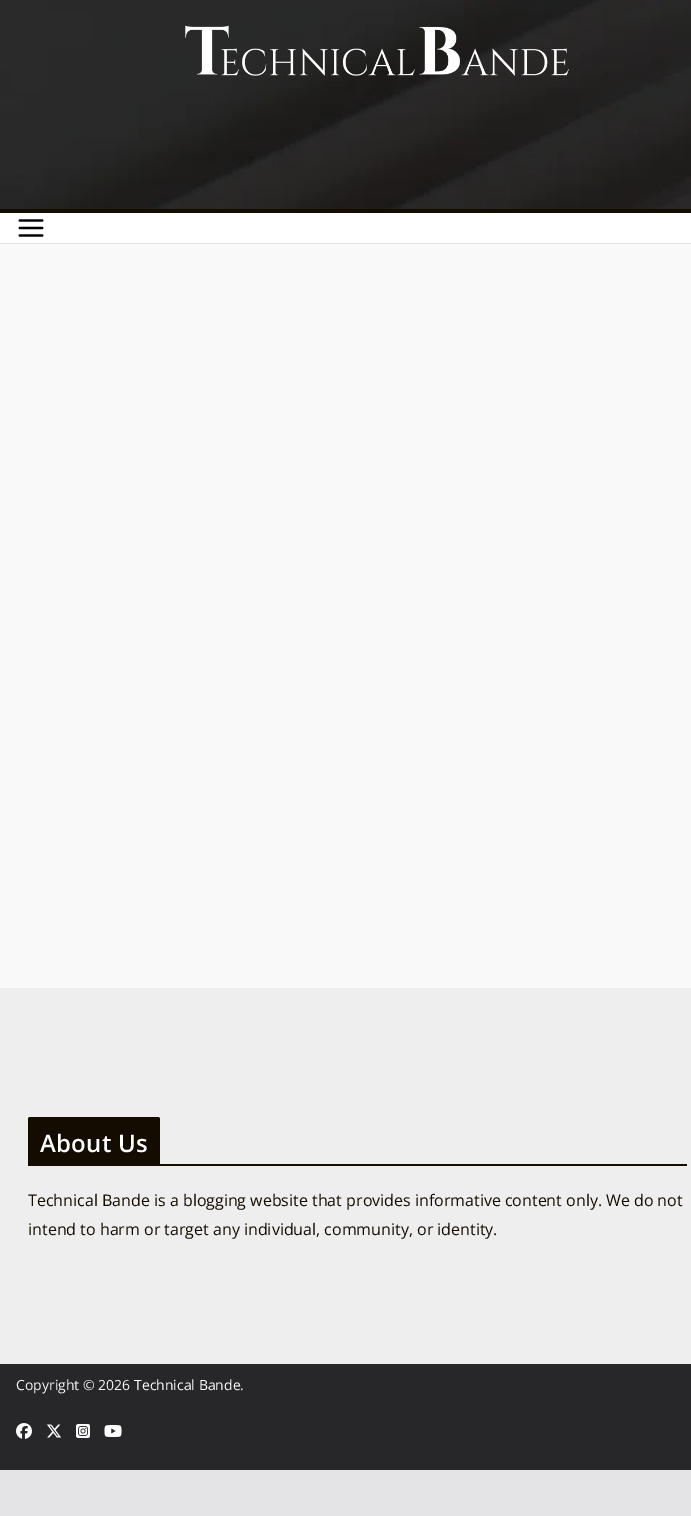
%!PS-Adobe-3.0
%%BoundingBox: 0 0 691 1516
%%LanguageLevel: 3
%%Pages: 1
%%EndComments
%%BeginProlog
/setink { 3 { 255 div 3 1 roll } repeat setrgbcolor } def
/usefont { [ exch dup neg 0 0 3 -1 roll 0 0 ] selectfont } def
/drawtext { setink usefont moveto show } def
/fillbox { setink rectfill } def
/drawimage { 5 dict begin { /h /w /y /x /name } { exch def } forall
  gsave x y translate w h scale
  w h 8 [w 0 0 h 0 0] name (r) file false 3 colorimage grestore end } def
%%EndProlog
%%BeginSetup
<< /PageSize [691 1516] >> setpagedevice
%%EndSetup
%%Page: 1 1
0 1516 translate 1 -1 scale
4 setmiterlimit
0 0 691 1516 228 228 231 fillbox
0 213 691 30 255 255 255 fillbox
(assets/img1.rgb) 0 0 691 209 drawimage
(assets/img2.rgb) 185 25 384 51 drawimage
0 209 691 4 21 12 1 fillbox
(assets/img3.rgb) 18 219 26 18 drawimage
0 244 691 744 249 249 249 fillbox
0 988 691 376 238 238 238 fillbox
28 1164 659 2 21 12 1 fillbox
30 1117 moveto 158 1117 lineto 159 1117 160 1118 160 1119 curveto 160 1164 lineto 28 1164 lineto 28 1119 lineto 28 1118 29 1117 30 1117 curveto closepath fill
/OpenSans-SemiBold 24 usefont
255 255 255 setink
40 1152 moveto 0.25 0 (About Us) ashow
(Technical Bande is a blogging website that provides informative content only. We do not) 28 1206 /OpenSans-Regular 16 21 12 1 drawtext
(intend to harm or target any individual, community, or identity.) 28 1235 /OpenSans-Regular 16 21 12 1 drawtext
0 1364 691 106 39 39 42 fillbox
(Copyright © 2026) 16 1390 /OpenSans-Regular 14 244 244 245 drawtext
(Technical Bande) 134 1390 /OpenSans-Regular 14 255 255 255 drawtext
(.) 240 1390 /OpenSans-Regular 14 244 244 245 drawtext
(assets/img4.rgb) 16 1423 16 16 drawimage
(assets/img5.rgb) 47 1424 15 14 drawimage
(assets/img6.rgb) 76 1424 14 14 drawimage
(assets/img7.rgb) 104 1425 18 12 drawimage
showpage
%%EOF
